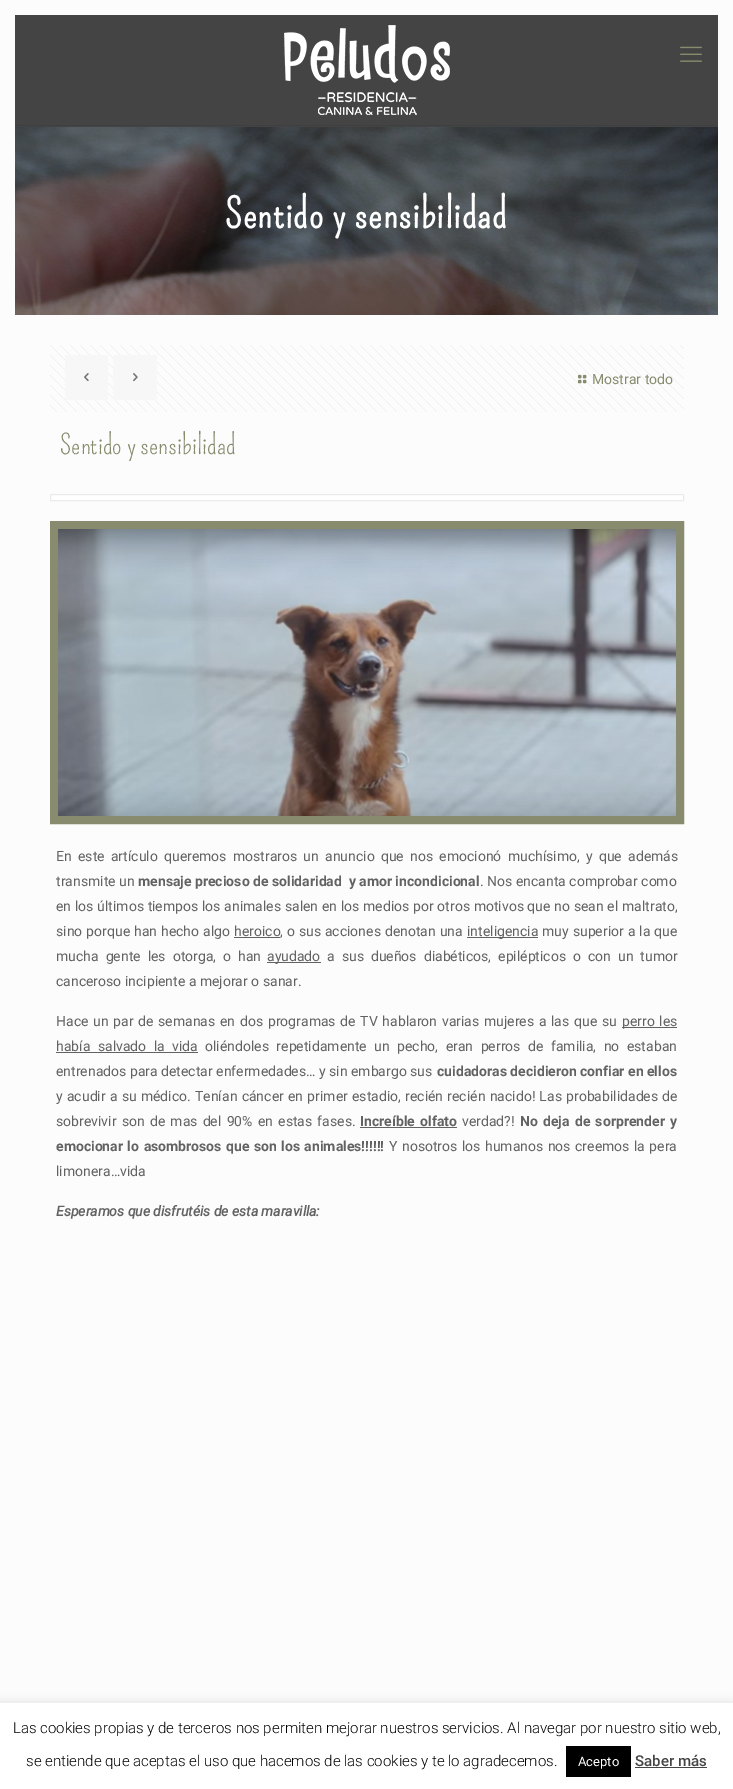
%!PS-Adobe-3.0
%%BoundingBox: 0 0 733 1789
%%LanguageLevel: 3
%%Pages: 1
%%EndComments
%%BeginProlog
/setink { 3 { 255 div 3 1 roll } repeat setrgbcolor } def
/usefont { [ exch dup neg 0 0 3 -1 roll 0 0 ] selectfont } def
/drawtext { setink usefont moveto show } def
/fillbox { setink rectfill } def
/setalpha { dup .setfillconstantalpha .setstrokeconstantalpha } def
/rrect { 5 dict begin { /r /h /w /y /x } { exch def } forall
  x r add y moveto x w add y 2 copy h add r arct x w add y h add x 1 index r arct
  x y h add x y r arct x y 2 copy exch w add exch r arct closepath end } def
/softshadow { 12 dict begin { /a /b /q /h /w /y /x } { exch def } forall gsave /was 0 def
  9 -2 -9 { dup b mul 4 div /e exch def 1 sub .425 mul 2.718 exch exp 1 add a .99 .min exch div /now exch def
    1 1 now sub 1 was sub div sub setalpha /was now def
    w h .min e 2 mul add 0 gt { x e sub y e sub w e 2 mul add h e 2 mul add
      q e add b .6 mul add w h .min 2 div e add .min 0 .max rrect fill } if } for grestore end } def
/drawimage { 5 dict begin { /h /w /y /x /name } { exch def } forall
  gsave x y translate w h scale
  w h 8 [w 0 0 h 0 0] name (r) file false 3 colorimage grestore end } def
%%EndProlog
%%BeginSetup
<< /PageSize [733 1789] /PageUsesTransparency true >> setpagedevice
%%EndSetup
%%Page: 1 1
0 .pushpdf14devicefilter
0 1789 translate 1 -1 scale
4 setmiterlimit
0 0 733 1789 252 252 252 fillbox
(assets/img1.rgb) 15 127 703 188 drawimage
15 15 703 112 68 68 68 fillbox
15 125 703 1 63 63 63 fillbox
(assets/img2.rgb) 284 25 166 90 drawimage
(assets/img3.rgb) 680 46 22 16 drawimage
/Pompiere-Bold 40 usefont
255 255 255 setink
225 228 moveto 1 0 (Sentido y sensibilidad) ashow
(assets/img4.rgb) 50 345 634 67 drawimage
65 355 43 45 247 247 247 fillbox
(assets/img5.rgb) 84 373 5 9 drawimage
113 355 44 45 247 247 247 fillbox
(assets/img6.rgb) 133 373 5 9 drawimage
(assets/img7.rgb) 578 374 9 10 drawimage
(Mostrar todo) 592 384 /Roboto-Regular 14 136 139 109 drawtext
(Sentido y sensibilidad) 60 454 /Pompiere-Regular 27 136 139 109 drawtext
255 255 255 setink
50.5 494.5 moveto 683.5 494.5 lineto 683.5 500.5 lineto 50.5 500.5 lineto closepath gsave fill grestore
235 235 235 setink
stroke
136 139 109 setink
8 setlinewidth
54 525 626 295 rectstroke
(assets/img8.rgb) 58 529 618 287 drawimage
/Roboto-Regular 14 usefont
98 98 98 setink
56 861 moveto 2.75 0 32 (En este artículo queremos mostraros un anuncio que nos emocionó muchísimo, y que además) widthshow
(transmite un) 56 886 /Roboto-Regular 14 98 98 98 drawtext
(mensaje precioso de solidaridad  y amor incondicional) 138 886 /Roboto-Bold 14 98 98 98 drawtext
(. Nos encanta comprobar como) 480 886 /Roboto-Regular 14 98 98 98 drawtext
56 911 moveto 0.25 0 32 (en los últimos tiempos los animales salen en los medios por otros motivos que no sean el maltrato,) widthshow
56 936 moveto 0.5 0 32 (sino porque han hecho algo) widthshow
(heroico) 234 936 /Roboto-Regular 14 98 98 98 drawtext
234 937 46 1 98 98 98 fillbox
280 936 moveto 0.5 0 32 (, o sus acciones denotan una) widthshow
467 937 71 1 98 98 98 fillbox
(inteligencia) 467 936 /Roboto-Regular 14 98 98 98 drawtext
542 936 moveto 0.5 0 32 (muy superior a la que) widthshow
56 961 moveto 3.5 0 32 (mucha gente les otorga, o han) widthshow
267 962 54 1 98 98 98 fillbox
(ayudado) 267 961 /Roboto-Regular 14 98 98 98 drawtext
327 961 moveto 3.5 0 32 (a sus dueños diabéticos, epilépticos o con un tumor) widthshow
(canceroso incipiente a mejorar o sanar.) 56 986 /Roboto-Regular 14 98 98 98 drawtext
56 1026 moveto 1.25 0 32 (Hace un par de semanas en dos programas de TV hablaron varias mujeres a las que su) widthshow
622 1027 55 1 98 98 98 fillbox
622 1026 moveto 1.25 0 32 (perro les) widthshow
56 1051 moveto 4 0 32 (había salvado la vida) widthshow
56 1052 142 1 98 98 98 fillbox
205 1051 moveto 4 0 32 (oliéndoles repetidamente un pecho, eran perros de familia, no estaban) widthshow
(entrenados para detectar enfermedades… y sin embargo sus) 56 1076 /Roboto-Regular 14 98 98 98 drawtext
(cuidadoras decidieron confiar en ellos) 437 1076 /Roboto-Bold 14 98 98 98 drawtext
/Roboto-Regular 14 usefont
56 1101 moveto 0.75 0 32 (y acudir a su médico. Tenían cáncer en primer estadio, recién recién nacido! Las probabilidades de) widthshow
56 1126 moveto 1.75 0 32 (sobrevivir son de mas del 90% en estas fases.) widthshow
/Roboto-Bold 14 usefont
360 1126 moveto 2 0 32 (Increíble olfato) widthshow
360 1127 97 1 98 98 98 fillbox
(verdad?!) 462 1126 /Roboto-Regular 14 98 98 98 drawtext
/Roboto-Bold 14 usefont
520 1126 moveto 1.75 0 32 (No deja de sorprender y) widthshow
56 1151 moveto 1 0 32 (emocionar lo asombrosos que son los animales!!!!!!) widthshow
/Roboto-Regular 14 usefont
389 1151 moveto 1 0 32 (Y nosotros los humanos nos creemos la pera) widthshow
(limonera…vida) 56 1176 /Roboto-Regular 14 98 98 98 drawtext
(Esperamos que disfrutéis de esta maravilla:) 56 1216 /Roboto-BoldItalic 14 98 98 98 drawtext
172 171 171 setink
0 1702 733 86 0 5 0.3 softshadow
0 1703 733 86 255 255 255 fillbox
(Las cookies propias y de terceros nos permiten mejorar nuestros servicios. Al navegar por nuestro sitio web,) 13 1733 /Roboto-Light 15 0 0 0 drawtext
(se entiende que aceptas el uso que hacemos de las cookies y te lo agradecemos.) 26 1766 /Roboto-Light 15 0 0 0 drawtext
566 1746 65 31 0 0 0 fillbox
(Acepto) 578 1766 /Roboto-Regular 13 255 255 255 drawtext
(Saber más) 635 1766 /Roboto-Medium 15 68 68 68 drawtext
635 1767 72 1 68 68 68 fillbox
.poppdf14devicefilter showpage
%%EOF
